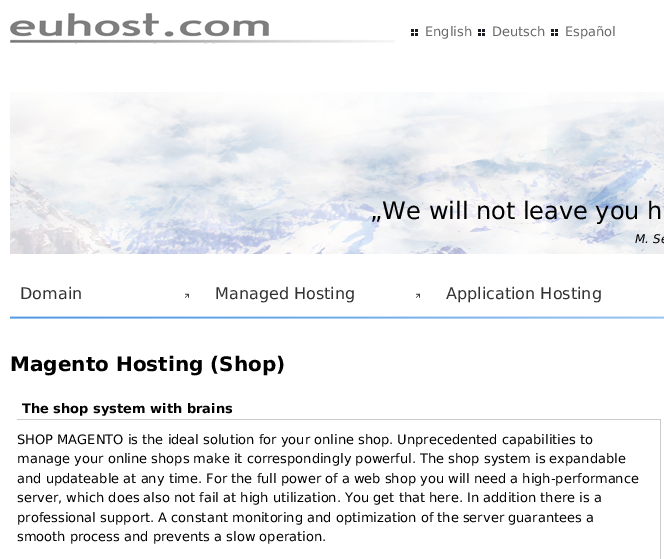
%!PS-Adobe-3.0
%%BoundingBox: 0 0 664 559
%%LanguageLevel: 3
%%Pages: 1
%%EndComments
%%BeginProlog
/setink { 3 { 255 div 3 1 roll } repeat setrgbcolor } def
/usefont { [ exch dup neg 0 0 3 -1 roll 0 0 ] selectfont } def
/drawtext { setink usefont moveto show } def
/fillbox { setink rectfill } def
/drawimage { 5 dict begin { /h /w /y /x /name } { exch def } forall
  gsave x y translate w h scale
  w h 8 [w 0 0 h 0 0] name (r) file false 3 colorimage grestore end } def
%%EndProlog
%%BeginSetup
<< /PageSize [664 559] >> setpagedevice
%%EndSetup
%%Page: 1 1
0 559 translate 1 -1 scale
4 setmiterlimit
0 0 664 559 255 255 255 fillbox
(assets/img1.rgb) 10 13 385 31 drawimage
(assets/img2.rgb) 411 29 7 7 drawimage
(English) 425 36 /DejaVuSans-Regular 13 104 104 104 drawtext
(assets/img2.rgb) 478 29 7 7 drawimage
(Deutsch) 492 36 /DejaVuSans-Regular 13 104 104 104 drawtext
(assets/img2.rgb) 551 29 7 7 drawimage
(Español) 565 36 /DejaVuSans-Regular 13 104 104 104 drawtext
(assets/img3.rgb) 10 92 654 162 drawimage
(„We will not leave you h) 370 219 /DejaVuSans-Regular 24 0 0 0 drawtext
(M. Se) 635 243 /DejaVuSans-Italic 12 0 0 0 drawtext
(assets/img4.rgb) 10 316 654 3 drawimage
(Domain) 20 299 /DejaVuSans-Regular 16 51 51 51 drawtext
(assets/img5.rgb) 185 293 4 5 drawimage
(Managed Hosting) 215 299 /DejaVuSans-Regular 16 51 51 51 drawtext
(assets/img5.rgb) 416 293 4 5 drawimage
(Application Hosting) 446 299 /DejaVuSans-Regular 16 51 51 51 drawtext
(Magento Hosting \(Shop\)) 10 371 /DejaVuSans-Bold 20 0 0 0 drawtext
(The shop system with brains) 22 413 /DejaVuSans-Bold 13 0 0 0 drawtext
17 419 644 1 203 203 203 fillbox
660 419 1 140 203 203 203 fillbox
(SHOP MAGENTO is the ideal solution for your online shop. Unprecedented capabilities to) 17 444 /DejaVuSans-Regular 13 0 0 0 drawtext
(manage your online shops make it correspondingly powerful. The shop system is expandable) 17 463 /DejaVuSans-Regular 13 0 0 0 drawtext
(and updateable at any time. For the full power of a web shop you will need a high-performance) 17 483 /DejaVuSans-Regular 13 0 0 0 drawtext
(server, which does also not fail at high utilization. You get that here. In addition there is a) 17 502 /DejaVuSans-Regular 13 0 0 0 drawtext
(professional support. A constant monitoring and optimization of the server guarantees a) 17 522 /DejaVuSans-Regular 13 0 0 0 drawtext
(smooth process and prevents a slow operation.) 17 541 /DejaVuSans-Regular 13 0 0 0 drawtext
showpage
%%EOF
